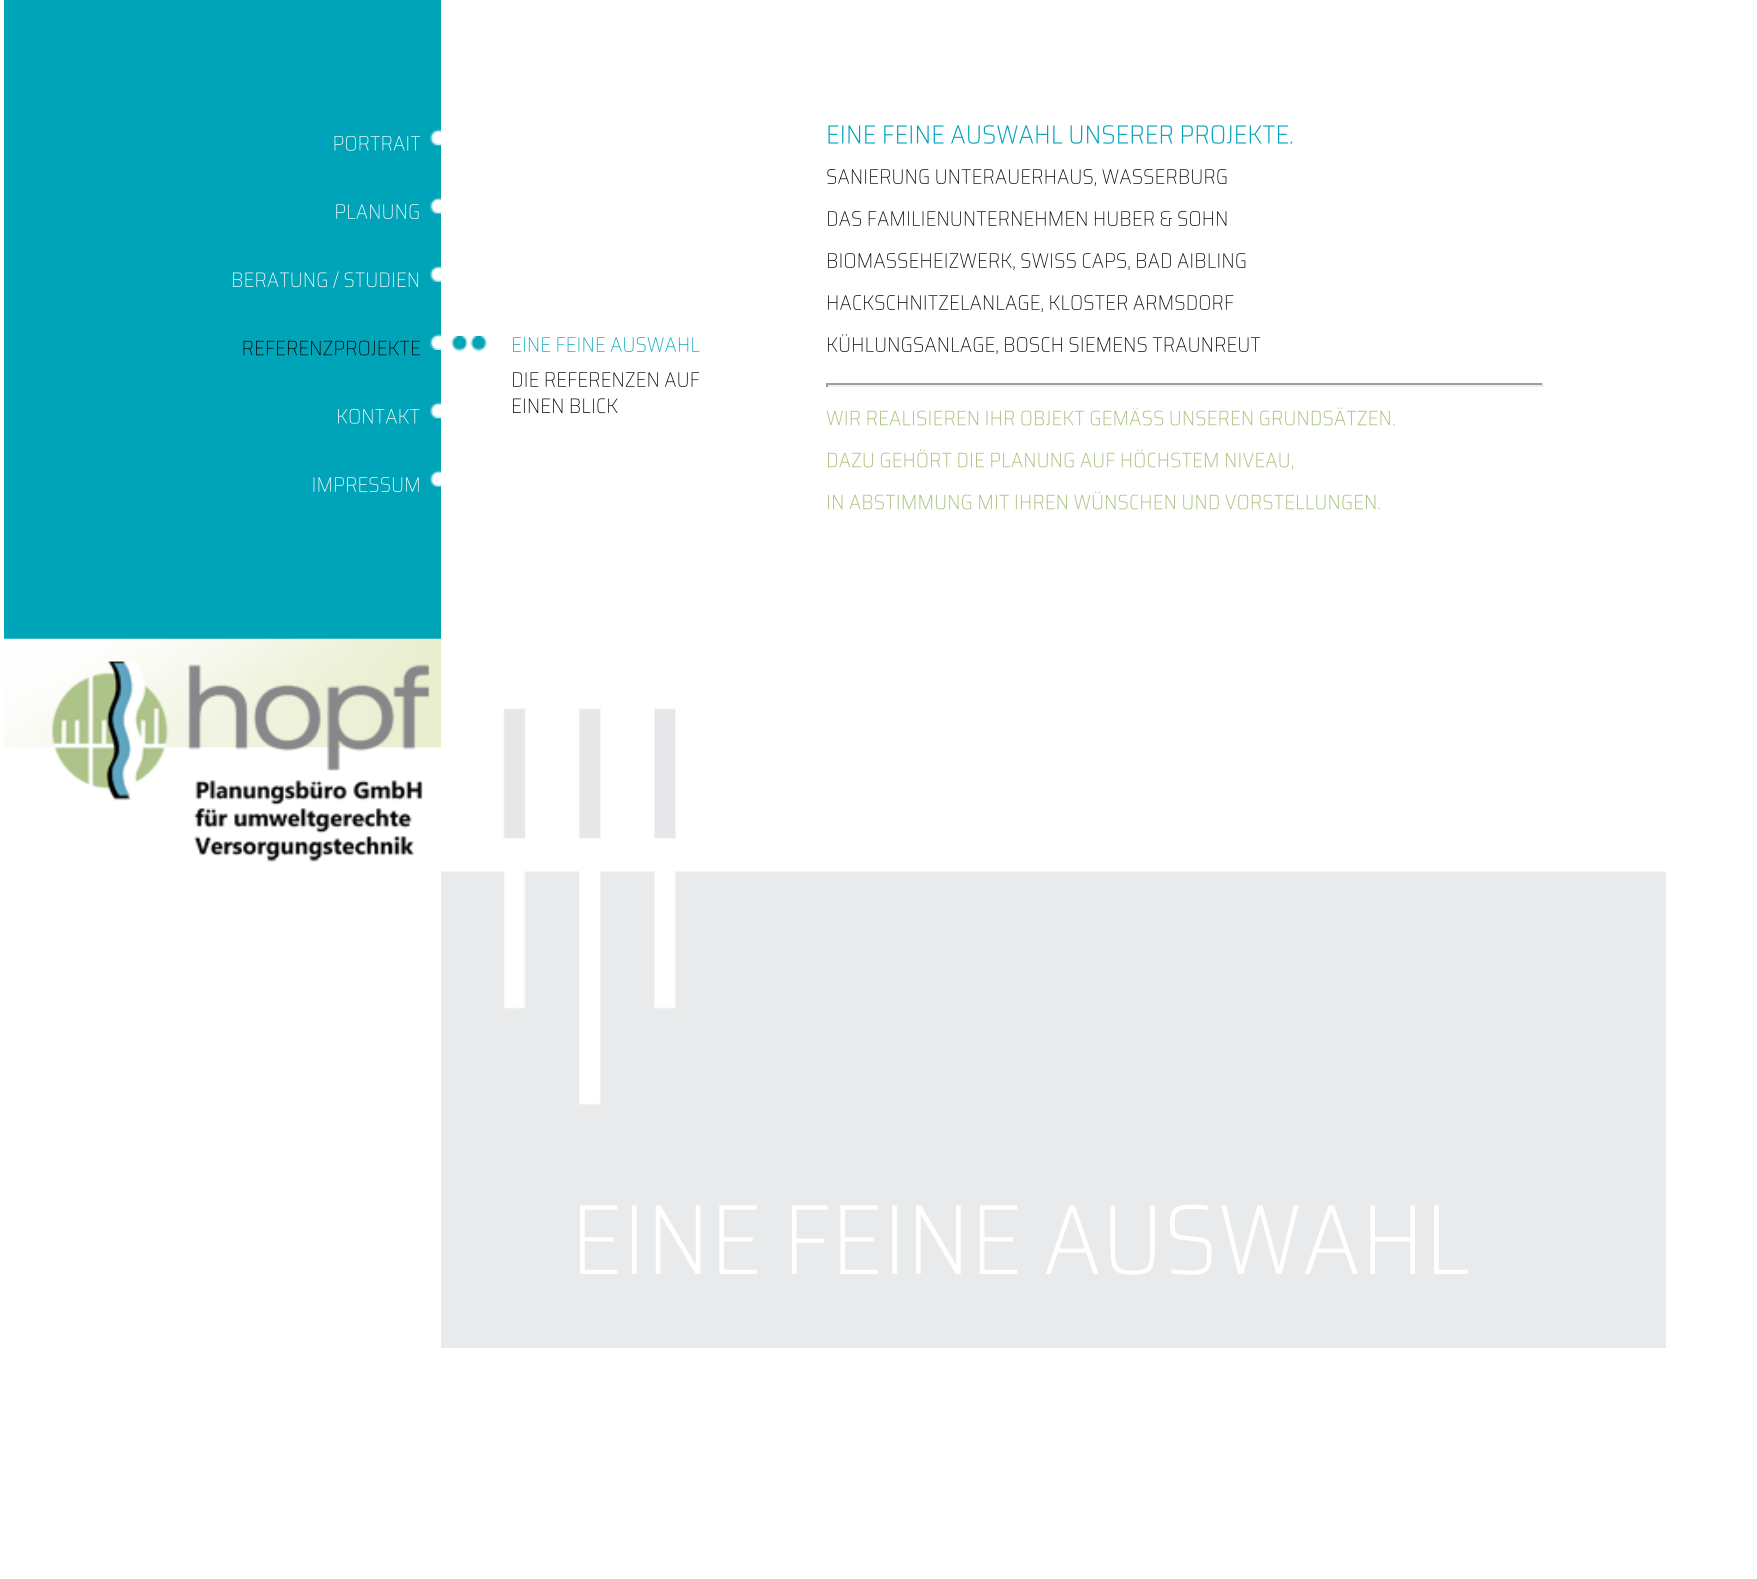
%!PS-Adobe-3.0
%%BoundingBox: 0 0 1757 1579
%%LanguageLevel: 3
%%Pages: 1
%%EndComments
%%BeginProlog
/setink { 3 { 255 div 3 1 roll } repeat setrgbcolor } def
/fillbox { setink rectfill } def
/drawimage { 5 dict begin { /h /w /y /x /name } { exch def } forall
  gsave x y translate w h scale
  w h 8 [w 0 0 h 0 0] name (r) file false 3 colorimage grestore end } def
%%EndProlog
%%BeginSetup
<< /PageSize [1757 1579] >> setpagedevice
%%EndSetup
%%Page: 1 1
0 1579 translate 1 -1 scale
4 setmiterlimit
0 0 1757 1579 255 255 255 fillbox
4 0 437 639 0 164 185 fillbox
(assets/img1.rgb) 334 135 87 16 drawimage
(assets/img2.rgb) 430 129 11 17 drawimage
(assets/img3.rgb) 336 204 83 15 drawimage
(assets/img4.rgb) 430 197 11 17 drawimage
(assets/img5.rgb) 233 271 186 18 drawimage
(assets/img6.rgb) 430 266 11 16 drawimage
(assets/img7.rgb) 243 340 177 16 drawimage
(assets/img8.rgb) 430 334 11 16 drawimage
(assets/img16.rgb) 441 0 1225 1105 drawimage
(assets/img9.rgb) 451 336 36 16 drawimage
(assets/img10.rgb) 513 337 187 15 drawimage
(assets/img11.rgb) 513 372 187 15 drawimage
(assets/img12.rgb) 513 398 105 16 drawimage
(assets/img13.rgb) 338 408 82 16 drawimage
(assets/img2.rgb) 430 402 11 17 drawimage
(assets/img14.rgb) 313 477 106 15 drawimage
(assets/img4.rgb) 430 470 11 17 drawimage
(assets/img15.rgb) 3 638 438 224 drawimage
441 1105 1225 243 233 234 235 fillbox
(assets/img17.rgb) 828 125 465 19 drawimage
(assets/img18.rgb) 827 169 400 17 drawimage
(assets/img19.rgb) 828 211 399 15 drawimage
(assets/img20.rgb) 828 253 418 17 drawimage
(assets/img21.rgb) 828 295 406 17 drawimage
(assets/img22.rgb) 828 334 433 20 drawimage
826 383 718 2 159 159 159 fillbox
1542 383 2 4 238 238 238 fillbox
826 385 718 2 238 238 238 fillbox
826 383 2 4 159 159 159 fillbox
(assets/img23.rgb) 826 407 569 19 drawimage
(assets/img24.rgb) 828 449 466 21 drawimage
(assets/img25.rgb) 828 491 552 19 drawimage
(assets/img26.rgb) 580 1204 888 71 drawimage
showpage
%%EOF
